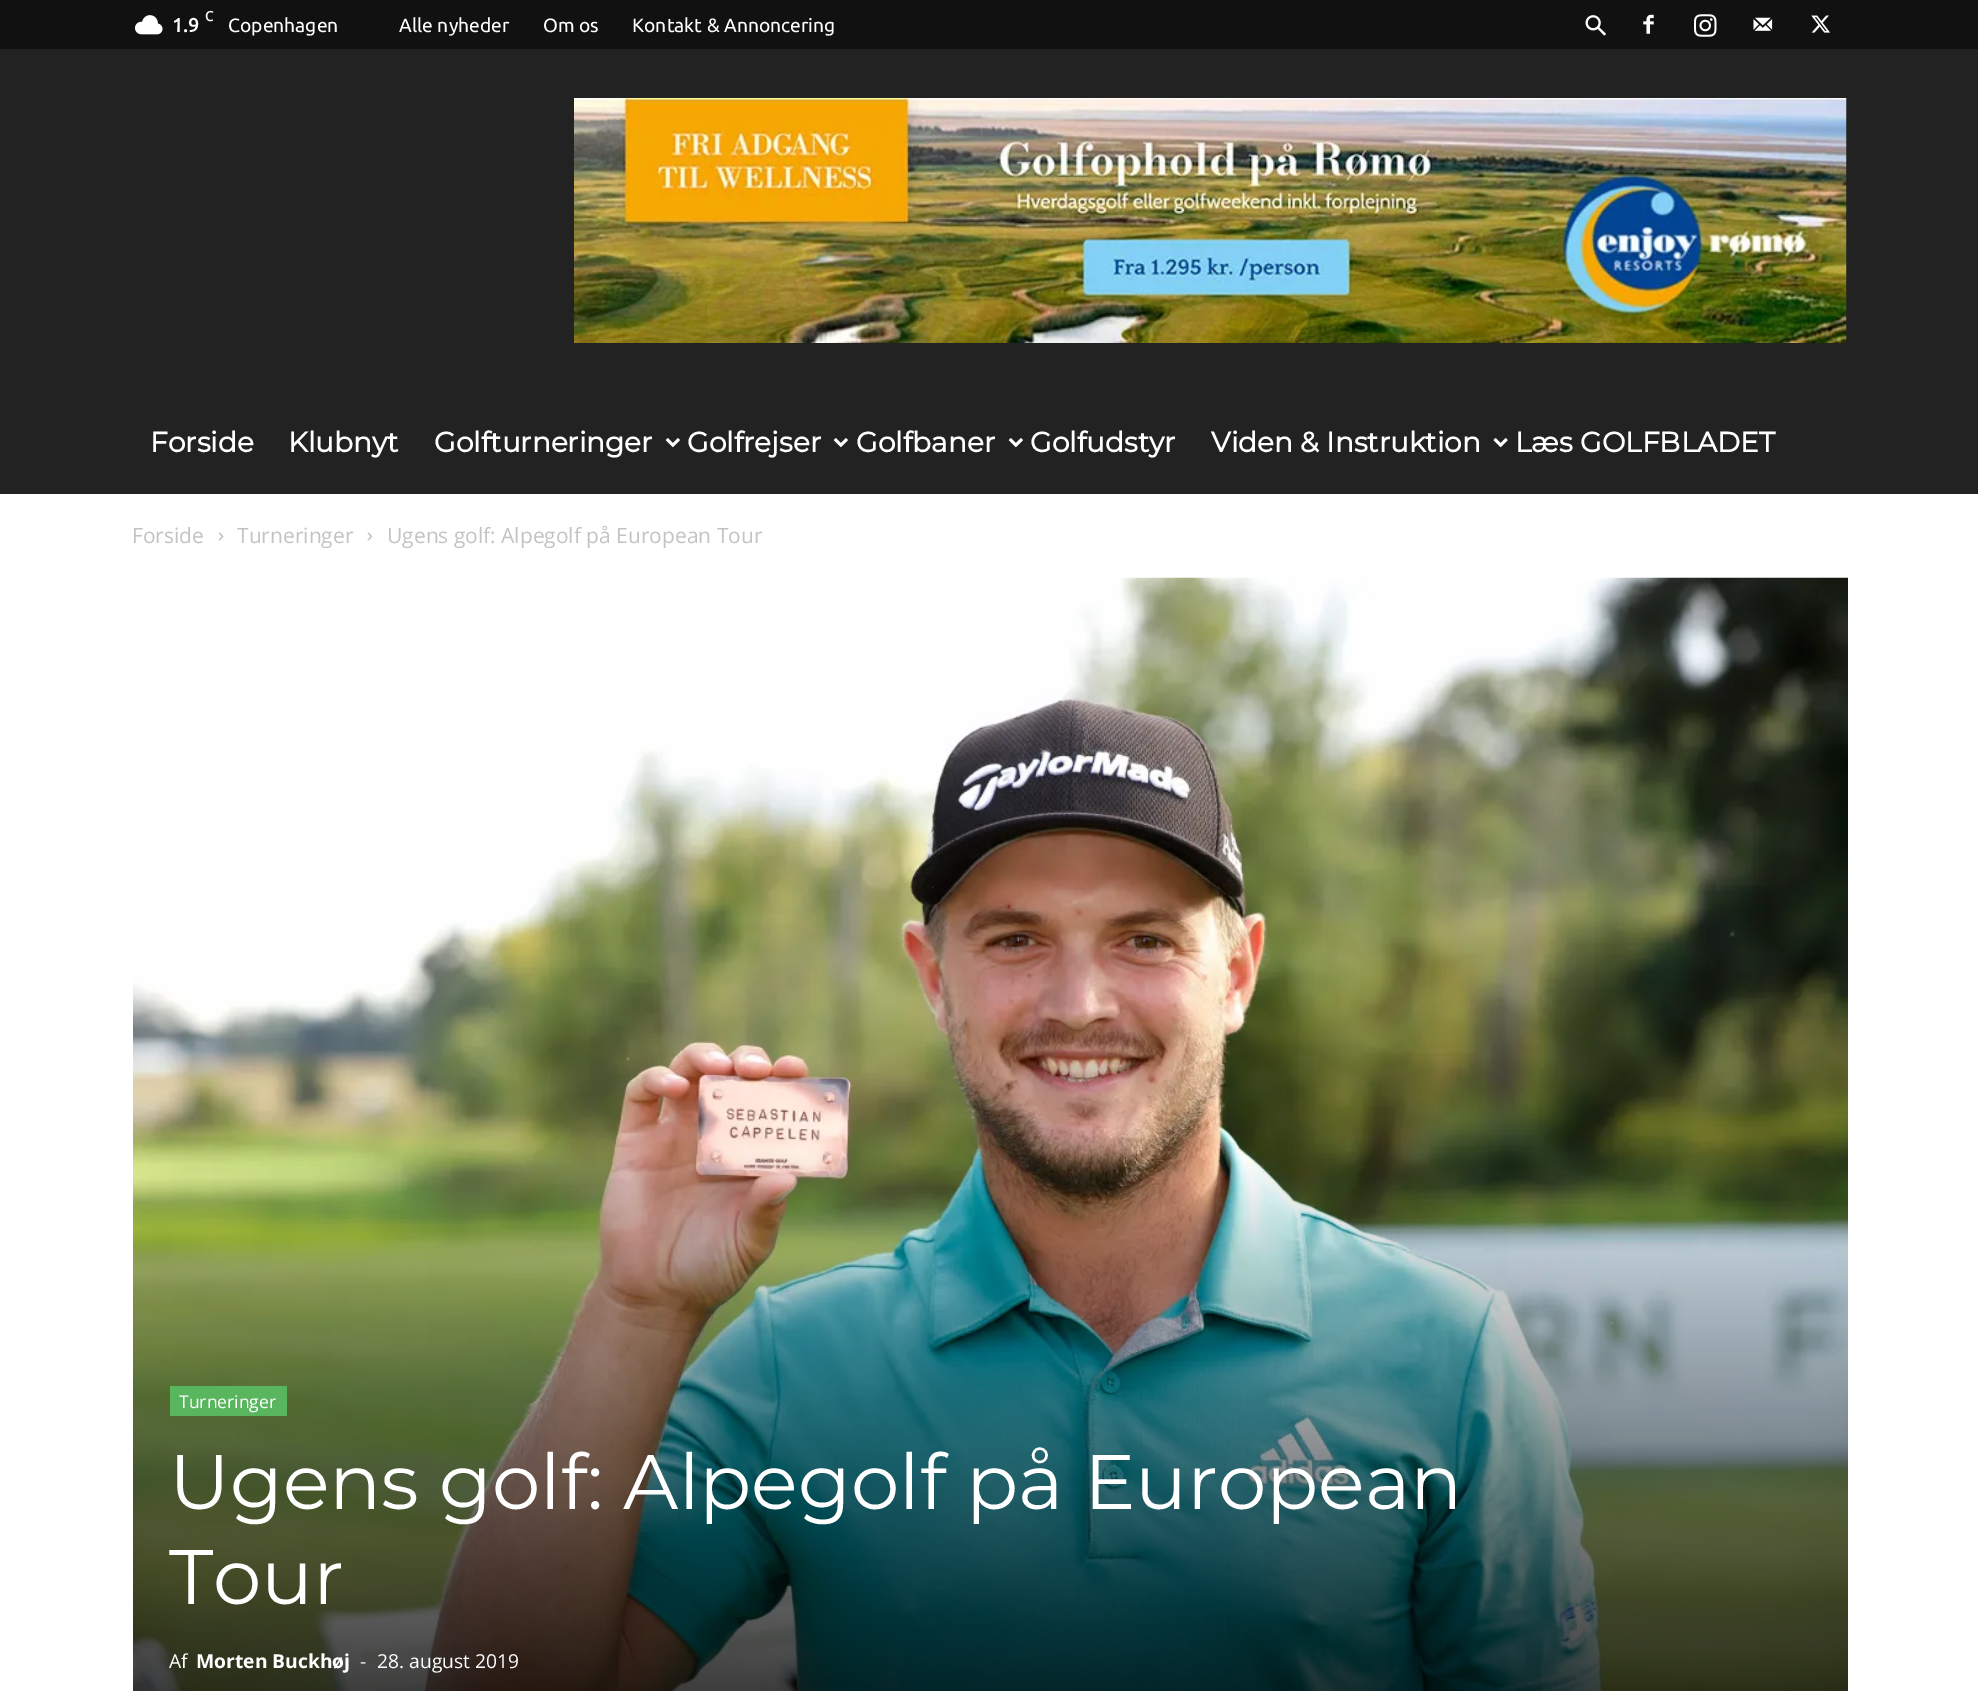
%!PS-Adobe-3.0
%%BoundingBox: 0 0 1978 1691
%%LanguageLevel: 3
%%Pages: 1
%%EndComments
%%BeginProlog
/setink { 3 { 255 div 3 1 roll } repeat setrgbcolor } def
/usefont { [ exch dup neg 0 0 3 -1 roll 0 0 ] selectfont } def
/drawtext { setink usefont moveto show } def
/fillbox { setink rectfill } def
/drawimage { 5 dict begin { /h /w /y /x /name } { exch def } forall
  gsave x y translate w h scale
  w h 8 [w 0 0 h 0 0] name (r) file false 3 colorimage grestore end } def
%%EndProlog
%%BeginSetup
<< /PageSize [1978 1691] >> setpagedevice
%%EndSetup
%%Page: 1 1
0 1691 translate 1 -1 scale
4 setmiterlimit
0 0 1978 1691 255 255 255 fillbox
0 0 1978 49 17 17 17 fillbox
(assets/img1.rgb) 135 15 28 20 drawimage
(C) 205 21 /OpenSans-SemiBold 14 255 255 255 drawtext
(1.9) 172 32 /Ubuntu-Bold 19.25 255 255 255 drawtext
(Copenhagen) 228 32 /Ubuntu-Regular 19.25 255 255 255 drawtext
(Alle nyheder) 399 32 /Ubuntu-Regular 19.25 255 255 255 drawtext
(Om os) 543 32 /Ubuntu-Regular 19.25 255 255 255 drawtext
(Kontakt & Annoncering) 632 32 /Ubuntu-Regular 19.25 255 255 255 drawtext
(assets/img2.rgb) 1585 15 21 21 drawimage
(assets/img3.rgb) 1643 14 11 20 drawimage
(assets/img4.rgb) 1694 14 23 23 drawimage
(assets/img5.rgb) 1753 17 20 14 drawimage
(assets/img6.rgb) 1811 15 19 18 drawimage
0 49 1978 445 34 34 34 fillbox
(assets/img7.rgb) 574 98 1273 245 drawimage
(Forside) 150 452 /Montserrat-Bold 28 255 255 255 drawtext
(Klubnyt) 288 452 /Montserrat-Bold 28 255 255 255 drawtext
(Golfturneringer) 434 452 /Montserrat-Bold 28 255 255 255 drawtext
(assets/img8.rgb) 665 438 15 10 drawimage
(Golfrejser) 687 452 /Montserrat-Bold 28 255 255 255 drawtext
(assets/img8.rgb) 833 438 15 10 drawimage
(Golfbaner) 856 452 /Montserrat-Bold 28 255 255 255 drawtext
(assets/img8.rgb) 1008 438 15 10 drawimage
(Golfudstyr) 1030 452 /Montserrat-Bold 28 255 255 255 drawtext
(Viden & Instruktion) 1211 452 /Montserrat-Bold 28 255 255 255 drawtext
(assets/img9.rgb) 1493 438 15 10 drawimage
(Læs GOLFBLADET) 1515 452 /Montserrat-Bold 28 255 255 255 drawtext
(Forside) 132 543 /OpenSans-Regular 21 195 195 195 drawtext
(assets/img10.rgb) 218 532 6 9 drawimage
(Turneringer) 237 543 /OpenSans-Regular 21 195 195 195 drawtext
(assets/img11.rgb) 367 532 6 9 drawimage
(Ugens golf: Alpegolf på European Tour) 387 543 /OpenSans-Regular 21 195 195 195 drawtext
(assets/img12.rgb) 133 577 1715 1114 drawimage
170 1386 117 30 90 182 94 fillbox
(Turneringer) 179 1408 /OpenSans-Regular 17.5 255 255 255 drawtext
(Ugens golf: Alpegolf på European) 169 1509 /Montserrat-Thin 77 255 255 255 drawtext
(Tour) 169 1604 /Montserrat-Thin 77 255 255 255 drawtext
(Af) 169 1668 /OpenSans-Regular 19.25 255 255 255 drawtext
(Morten Buckhøj) 196 1668 /OpenSans-Bold 19.25 255 255 255 drawtext
(-) 360 1668 /OpenSans-Regular 19.25 255 255 255 drawtext
(28. august 2019) 377 1668 /OpenSans-Regular 19.25 255 255 255 drawtext
showpage
%%EOF
